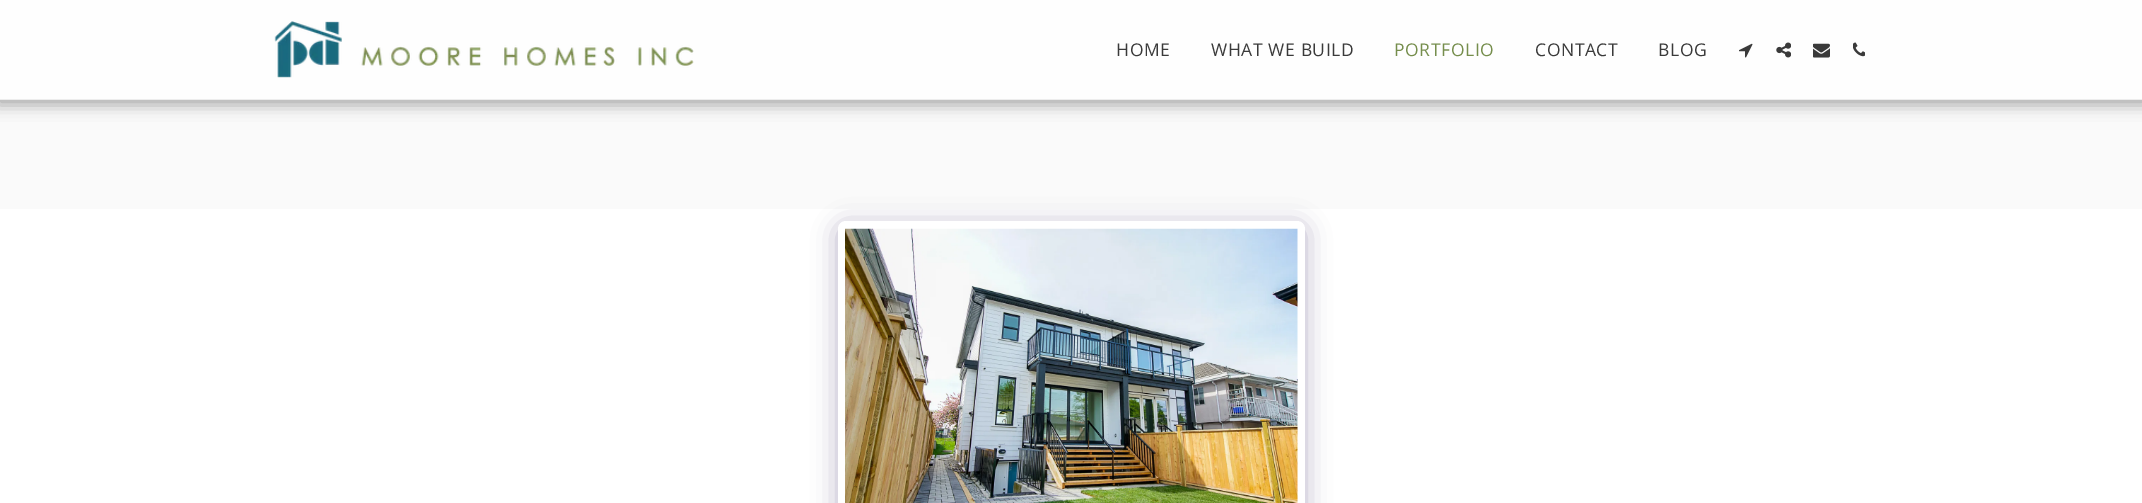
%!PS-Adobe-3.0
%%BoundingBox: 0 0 2142 503
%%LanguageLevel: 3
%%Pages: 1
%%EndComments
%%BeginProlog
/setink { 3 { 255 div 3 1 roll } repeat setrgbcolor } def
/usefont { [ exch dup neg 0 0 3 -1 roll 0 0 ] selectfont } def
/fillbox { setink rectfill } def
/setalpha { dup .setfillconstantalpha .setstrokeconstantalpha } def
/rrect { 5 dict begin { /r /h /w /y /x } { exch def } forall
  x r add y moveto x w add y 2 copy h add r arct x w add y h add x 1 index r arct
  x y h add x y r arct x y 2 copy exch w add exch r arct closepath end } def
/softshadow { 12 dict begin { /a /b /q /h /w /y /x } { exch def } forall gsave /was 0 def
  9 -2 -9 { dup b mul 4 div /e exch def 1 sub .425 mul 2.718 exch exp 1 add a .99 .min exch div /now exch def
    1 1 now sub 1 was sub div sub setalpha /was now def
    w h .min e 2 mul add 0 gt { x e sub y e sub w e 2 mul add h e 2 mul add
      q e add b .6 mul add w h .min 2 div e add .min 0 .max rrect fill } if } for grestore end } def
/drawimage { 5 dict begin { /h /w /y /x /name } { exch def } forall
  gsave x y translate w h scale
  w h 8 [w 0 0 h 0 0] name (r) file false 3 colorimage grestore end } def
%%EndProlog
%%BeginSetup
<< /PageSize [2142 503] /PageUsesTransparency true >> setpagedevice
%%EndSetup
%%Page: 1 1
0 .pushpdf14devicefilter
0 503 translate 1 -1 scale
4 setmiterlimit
0 0 2142 503 255 255 255 fillbox
0 100 2142 109 250 250 250 fillbox
25 25 25 setink
-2 0 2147 105 0 7.5 0.35 softshadow
0 0 2142 99 254 254 254 fillbox
0 99 2142 1 237 237 237 fillbox
(assets/img1.rgb) 274 21 420 57 drawimage
/OpenSans-Regular 17.5 usefont
58 58 58 setink
1116 56 moveto 0.6 0 (HOME) ashow
1211 56 moveto 0.6 0 (WHAT WE BUILD) ashow
118 142 77 setink
1394 56 moveto 0.6 0 (PORTFOLIO) ashow
58 58 58 setink
1535 56 moveto 0.6 0 (CONTACT) ashow
1658 56 moveto 0.6 0 (BLOG) ashow
(assets/img2.rgb) 1739 43 14 15 drawimage
(assets/img3.rgb) 1776 42 15 16 drawimage
(assets/img4.rgb) 1813 43 17 15 drawimage
(assets/img5.rgb) 1853 42 12 15 drawimage
77 63 122 setink
838 225 467 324 8 12.5 0.4 softshadow
255 255 255 setink
838 221 467 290 8 rrect fill
(assets/img6.rgb) 845 228 453 275 drawimage
.poppdf14devicefilter showpage
%%EOF
